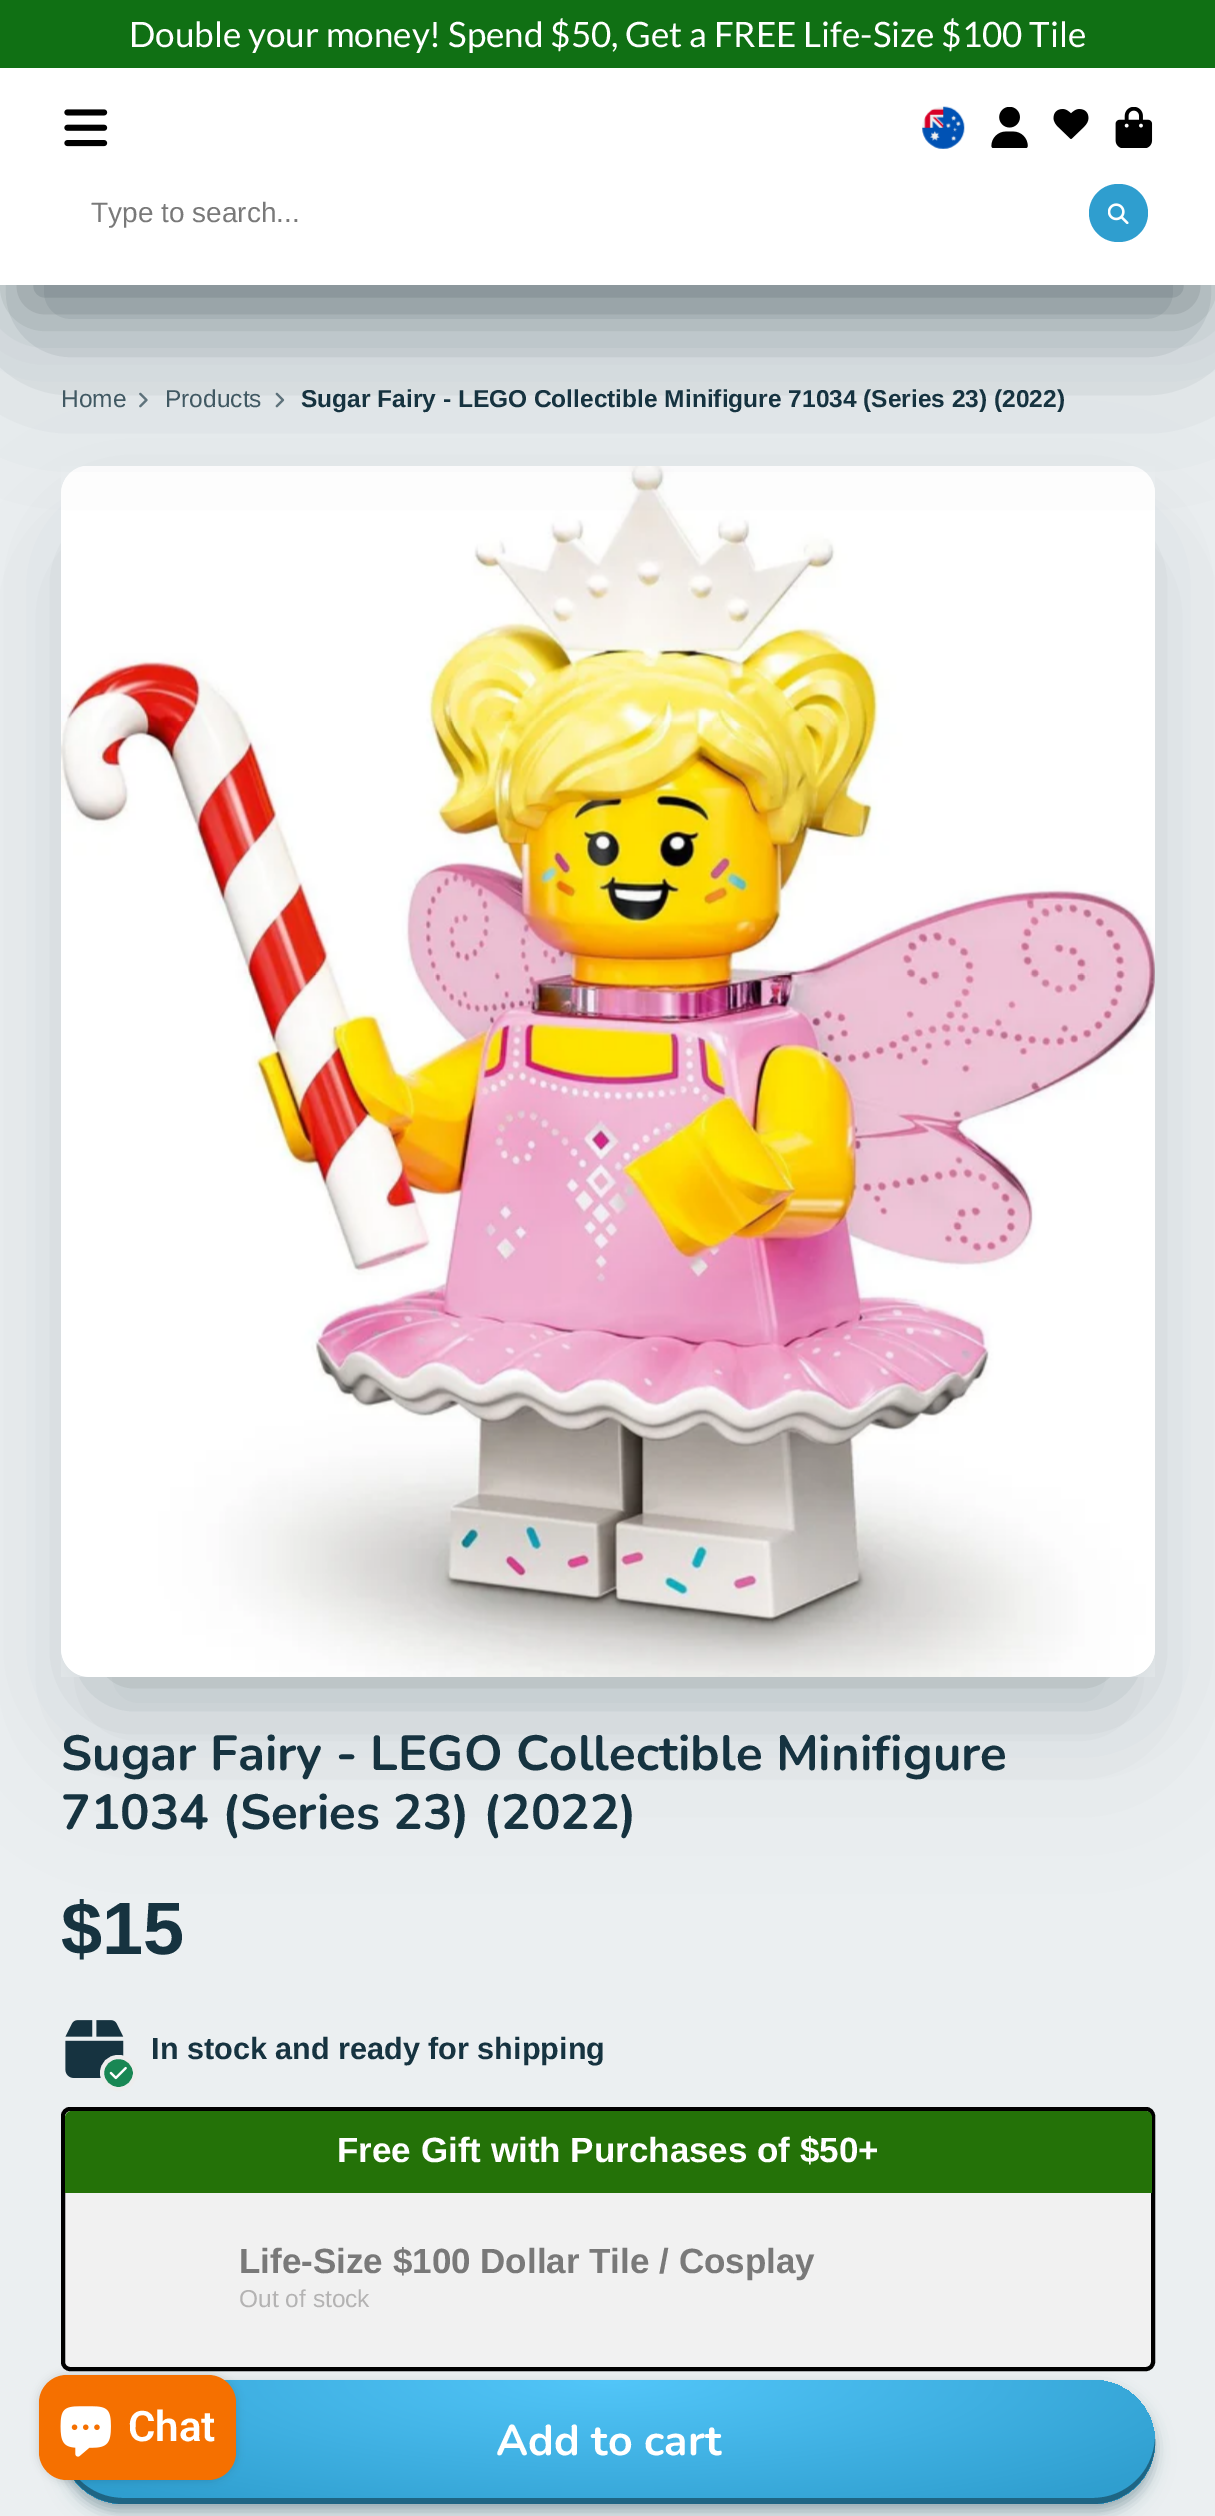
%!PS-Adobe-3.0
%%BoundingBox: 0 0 1215 2516
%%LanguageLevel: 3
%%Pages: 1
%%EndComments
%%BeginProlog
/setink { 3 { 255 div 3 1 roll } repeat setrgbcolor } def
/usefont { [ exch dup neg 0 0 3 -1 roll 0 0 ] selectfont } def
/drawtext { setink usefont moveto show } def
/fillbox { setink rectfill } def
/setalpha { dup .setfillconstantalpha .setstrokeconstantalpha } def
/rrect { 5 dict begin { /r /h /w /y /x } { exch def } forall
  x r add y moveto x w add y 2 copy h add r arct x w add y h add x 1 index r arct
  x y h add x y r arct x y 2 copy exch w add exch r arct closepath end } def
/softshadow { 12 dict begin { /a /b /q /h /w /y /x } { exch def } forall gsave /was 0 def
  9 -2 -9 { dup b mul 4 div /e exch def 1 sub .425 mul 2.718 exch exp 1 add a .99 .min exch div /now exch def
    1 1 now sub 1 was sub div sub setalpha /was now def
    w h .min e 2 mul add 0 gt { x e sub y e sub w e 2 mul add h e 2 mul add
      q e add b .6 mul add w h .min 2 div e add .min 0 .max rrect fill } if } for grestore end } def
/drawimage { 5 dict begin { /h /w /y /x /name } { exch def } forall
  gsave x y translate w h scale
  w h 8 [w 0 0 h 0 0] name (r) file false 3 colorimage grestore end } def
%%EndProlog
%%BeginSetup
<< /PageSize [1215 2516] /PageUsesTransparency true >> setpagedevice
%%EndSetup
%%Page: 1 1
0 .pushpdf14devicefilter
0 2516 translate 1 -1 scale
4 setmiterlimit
0 0 1215 2516 235 239 241 fillbox
(assets/img7.rgb) 139 392 9 16 drawimage
(assets/img8.rgb) 275 392 10 16 drawimage
15 36 45 setink
25 137 1167 169 0 33.5 0.4 softshadow
107 558 1003 1119 0 46 0.3 softshadow
93 572 1032 1150 0 76.5 0.1 softshadow
255 255 255 setink
61 466 1094 1211 28 rrect fill
(assets/img9.rgb) 61 466 1094 1211 drawimage
15 36 45 setink
25 168 1167 170 0 76.5 0.3 softshadow
0 0 1215 68 16 112 20 fillbox
(Double your money! Spend $50, Get a FREE Life-Size $100 Tile) 129 47 /Lato-Regular 35 255 255 255 drawtext
0 68 1215 217 255 255 255 fillbox
(assets/img1.rgb) 64 109 44 38 drawimage
(assets/img2.rgb) 922 106 43 43 drawimage
(assets/img3.rgb) 991 107 37 41 drawimage
(assets/img4.rgb) 1053 109 36 30 drawimage
(assets/img5.rgb) 1115 107 38 41 drawimage
(Type to search...) 91 222 /LiberationSans-Regular 28 121 121 121 drawtext
47 158 207 setink
1089 184 59 58 29 rrect fill
(assets/img6.rgb) 1108 203 21 21 drawimage
(Home) 61 407 /LiberationSans-Regular 24.5 65 89 99 drawtext
(Products) 165 407 /LiberationSans-Regular 24.5 65 89 99 drawtext
(Sugar Fairy - LEGO Collectible Minifigure 71034 \(Series 23\) \(2022\)) 301 407 /LiberationSans-Bold 24.5 22 51 64 drawtext
(Sugar Fairy - LEGO Collectible Minifigure) 61 1770 /Nunito-Bold 49.25 22 51 64 drawtext
(71034 \(Series 23\) \(2022\)) 61 1829 /Nunito-Bold 49.25 22 51 64 drawtext
($15) 61 1954 /LiberationSans-Bold 74 22 51 64 drawtext
(assets/img10.rgb) 65 2020 59 58 drawimage
25 135 84 setink
102 2057 33 32 16 rrect gsave fill grestore
237 237 237 setink
4 setlinewidth
stroke
(assets/img11.rgb) 109 2066 18 14 drawimage
(In stock and ready for shipping) 151 2059 /LiberationSans-Bold 30.6 22 51 64 drawtext
241 241 241 setink
63 2109 1090 260 7 rrect gsave fill grestore
0 0 0 setink
stroke
36 114 8 setink
72 2111 moveto 1145 2111 lineto 1149 2111 1152 2114 1152 2118 curveto 1152 2193 lineto 65 2193 lineto 65 2118 lineto 65 2114 68 2111 72 2111 curveto closepath fill
(Free Gift with Purchases of $50+) 337 2162 /LiberationSans-Bold 35 255 255 255 drawtext
(Life-Size $100 Dollar Tile / Cosplay) 239 2273 /LiberationSans-Bold 35 121 121 121 drawtext
(Out of stock) 239 2307 /LiberationSans-Regular 24.5 180 179 179 drawtext
19 63 82 setink
68 2399 1080 112 56 13 0.15 softshadow
61 2387 1094 124 62 6.5 0.3 softshadow
gsave
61 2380 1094 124 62 rrect clip newpath
68 2399 1080 112 56 13 0.15 softshadow
61 2387 1094 124 62 6.5 0.3 softshadow
grestore
gsave 61 2380 1094 124 62 rrect clip newpath 608 2380 translate 773 176 scale
<< /ShadingType 3 /ColorSpace /DeviceRGB /Coords [0 0 0 0 0 1] /Extend [true true] /Function << /FunctionType 3 /Domain [0 1] /Functions [<< /FunctionType 2 /Domain [0 1] /C0 [0.322 0.776 0.976] /C1 [0.184 0.62 0.812] /N 1 >> << /FunctionType 2 /Domain [0 1] /C0 [0.184 0.62 0.812] /C1 [0.184 0.62 0.812] /N 1 >>] /Bounds [0.9] /Encode [0 1 0 1] >> >> shfill grestore
30 101 132 setink
61 2439 moveto 59 2474 88 2504 123 2504 curveto 1093 2504 lineto 1128 2504 1157 2474 1155 2439 curveto 1153 2472 1126 2498 1093 2498 curveto 123 2498 lineto 90 2498 63 2472 61 2439 curveto closepath fill
(Add to cart) 496 2455 /Nunito-Bold 43 255 255 255 drawtext
0 0 0 setink
39 2375 197 105 28 4.5 0.15 softshadow
245 112 0 setink
39 2375 197 105 28 rrect fill
(assets/img12.rgb) 60 2406 51 51 drawimage
(Chat) 128 2441 /Roboto-SemiBold 42 255 255 255 drawtext
.poppdf14devicefilter showpage
%%EOF
